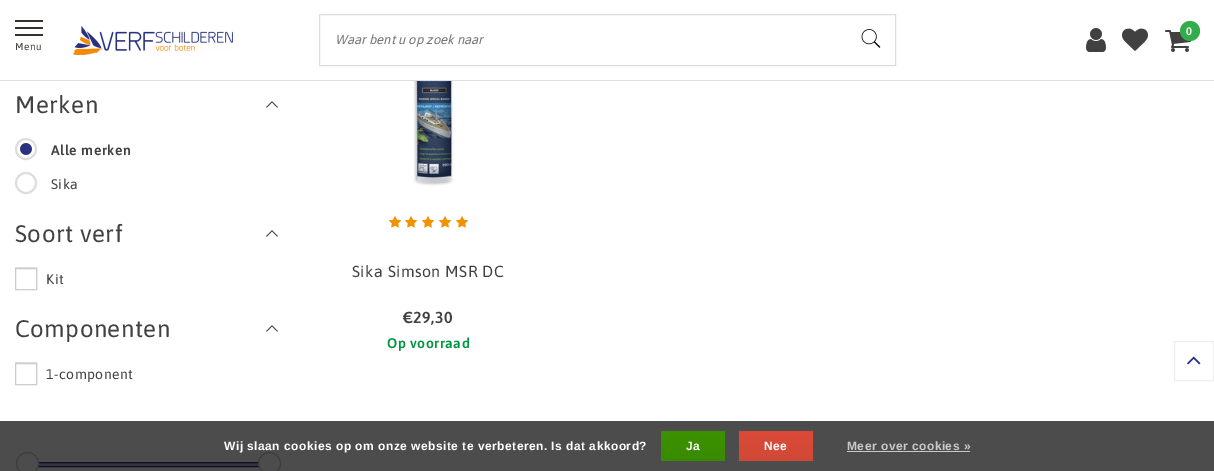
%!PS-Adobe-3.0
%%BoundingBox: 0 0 1214 471
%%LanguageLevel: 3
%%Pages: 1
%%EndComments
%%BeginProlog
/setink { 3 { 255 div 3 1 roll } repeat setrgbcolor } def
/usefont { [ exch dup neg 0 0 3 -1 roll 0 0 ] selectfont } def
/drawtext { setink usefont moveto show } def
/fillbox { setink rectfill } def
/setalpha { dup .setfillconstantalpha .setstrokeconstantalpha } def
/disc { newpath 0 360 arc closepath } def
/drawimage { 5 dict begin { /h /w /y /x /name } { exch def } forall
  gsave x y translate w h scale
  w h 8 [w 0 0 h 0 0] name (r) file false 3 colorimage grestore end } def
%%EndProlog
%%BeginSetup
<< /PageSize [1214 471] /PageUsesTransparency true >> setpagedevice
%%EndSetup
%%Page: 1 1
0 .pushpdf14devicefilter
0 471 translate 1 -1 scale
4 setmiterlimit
0 0 1214 471 255 255 255 fillbox
0 80 1214 1 221 221 221 fillbox
(assets/img1.rgb) 1086 28 20 24 drawimage
(assets/img2.rgb) 1122 28 26 23 drawimage
(assets/img3.rgb) 1165 30 26 22 drawimage
51 173 75 setink
1190 31 10 disc fill
/Asap-SemiBold 11 usefont
255 255 255 setink
1186 35 moveto 0.48 0 (0) ashow
15 20 28 2 52 49 47 fillbox
15 27 28 2 52 49 47 fillbox
15 34 28 2 52 49 47 fillbox
/Asap-Regular 10 usefont
65 65 65 setink
15 50 moveto 0.48 0 (Menu) ashow
(assets/img4.rgb) 73 26 160 29 drawimage
221 221 221 setink
319.5 14.5 576 51 rectstroke
(Waar bent u op zoek naar) 335 44 /Asap-Italic 13 117 117 117 drawtext
(assets/img5.rgb) 861 29 20 19 drawimage
/Asap-Regular 24 usefont
65 65 65 setink
15 113 moveto 0.48 0 (Merken) ashow
(assets/img6.rgb) 266 101 12 7 drawimage
221 221 221 setink
2 setlinewidth
26 149 10 disc stroke
(assets/img7.rgb) 20 143 12 12 drawimage
/Asap-SemiBold 14 usefont
65 65 65 setink
51 155 moveto 0.48 0 (Alle merken) ashow
221 221 221 setink
26 183 10 disc stroke
/Asap-Regular 14 usefont
65 65 65 setink
51 189 moveto 0.48 0 (Sika) ashow
/Asap-Regular 24 usefont
15 242 moveto 0.48 0 (Soort verf) ashow
(assets/img6.rgb) 266 230 12 7 drawimage
221 221 221 setink
16 268 20 20 rectstroke
255 255 255 setink
15.5 268.5 moveto 36.5 268.5 lineto 36.5 289.5 lineto 15.5 289.5 lineto closepath gsave fill grestore
204 204 204 setink
1 setlinewidth
stroke
/Asap-Regular 14 usefont
65 65 65 setink
46 284 moveto 0.48 0 (Kit) ashow
/Asap-Regular 24 usefont
15 337 moveto 0.48 0 (Componenten) ashow
(assets/img6.rgb) 266 325 12 7 drawimage
221 221 221 setink
2 setlinewidth
16 363 20 20 rectstroke
255 255 255 setink
15.5 363.5 moveto 36.5 363.5 lineto 36.5 384.5 lineto 15.5 384.5 lineto closepath gsave fill grestore
204 204 204 setink
1 setlinewidth
stroke
/Asap-Regular 14 usefont
65 65 65 setink
46 379 moveto 0.48 0 (1-component) ashow
31 463 228 3 170 172 204 fillbox
43 49 129 setink
31.5 462.5 241 4 rectstroke
255 255 255 setink
27.5 463.5 11 disc gsave fill grestore
204 204 204 setink
stroke
255 255 255 setink
269.5 463.5 11 disc gsave fill grestore
204 204 204 setink
stroke
(assets/img8.rgb) 413 81 43 105 drawimage
(assets/img9.rgb) 389 216 12 12 drawimage
(assets/img9.rgb) 405 216 12 12 drawimage
(assets/img9.rgb) 422 216 12 12 drawimage
(assets/img9.rgb) 439 216 12 12 drawimage
(assets/img9.rgb) 456 216 12 12 drawimage
/Asap-Regular 16 usefont
65 65 65 setink
352 277 moveto 0.48 0 (Sika Simson MSR DC) ashow
/Asap-SemiBold 16 usefont
403 323 moveto 0.48 0 (€29,30) ashow
/Asap-SemiBold 14 usefont
0 150 63 setink
387 348 moveto 0.48 0 (Op voorraad) ashow
238 238 238 setink
1174.5 341.5 39 39 rectstroke
(assets/img10.rgb) 1187 356 14 9 drawimage
0.7 setalpha
0 421 1214 50 0 0 0 fillbox
/LiberationSans-Bold 12 usefont
1 setalpha
255 255 255 setink
224 450 moveto 0.48 0 (Wij slaan cookies op om onze website te verbeteren. Is dat akkoord?) ashow
gsave 661 431 moveto 725 431 lineto 725 461 lineto 661 461 lineto closepath clip newpath
<< /ShadingType 2 /ColorSpace /DeviceRGB /Coords [693 431 693 461] /Extend [true true] /Function << /FunctionType 2 /Domain [0 1] /C0 [0.235 0.576 0] /C1 [0.224 0.541 0] /N 1 >> >> shfill grestore
686 450 moveto 0.48 0 (Ja) ashow
gsave 739 431 moveto 813 431 lineto 813 461 lineto 739 461 lineto closepath clip newpath
<< /ShadingType 2 /ColorSpace /DeviceRGB /Coords [776 431 776 461] /Extend [true true] /Function << /FunctionType 2 /Domain [0 1] /C0 [0.863 0.29 0.22] /C1 [0.82 0.282 0.212] /N 1 >> >> shfill grestore
764 450 moveto 0.48 0 (Nee) ashow
201 201 201 setink
847 450 moveto 0.48 0 (Meer over cookies ») ashow
847 451 123 1 201 201 201 fillbox
.poppdf14devicefilter showpage
%%EOF
